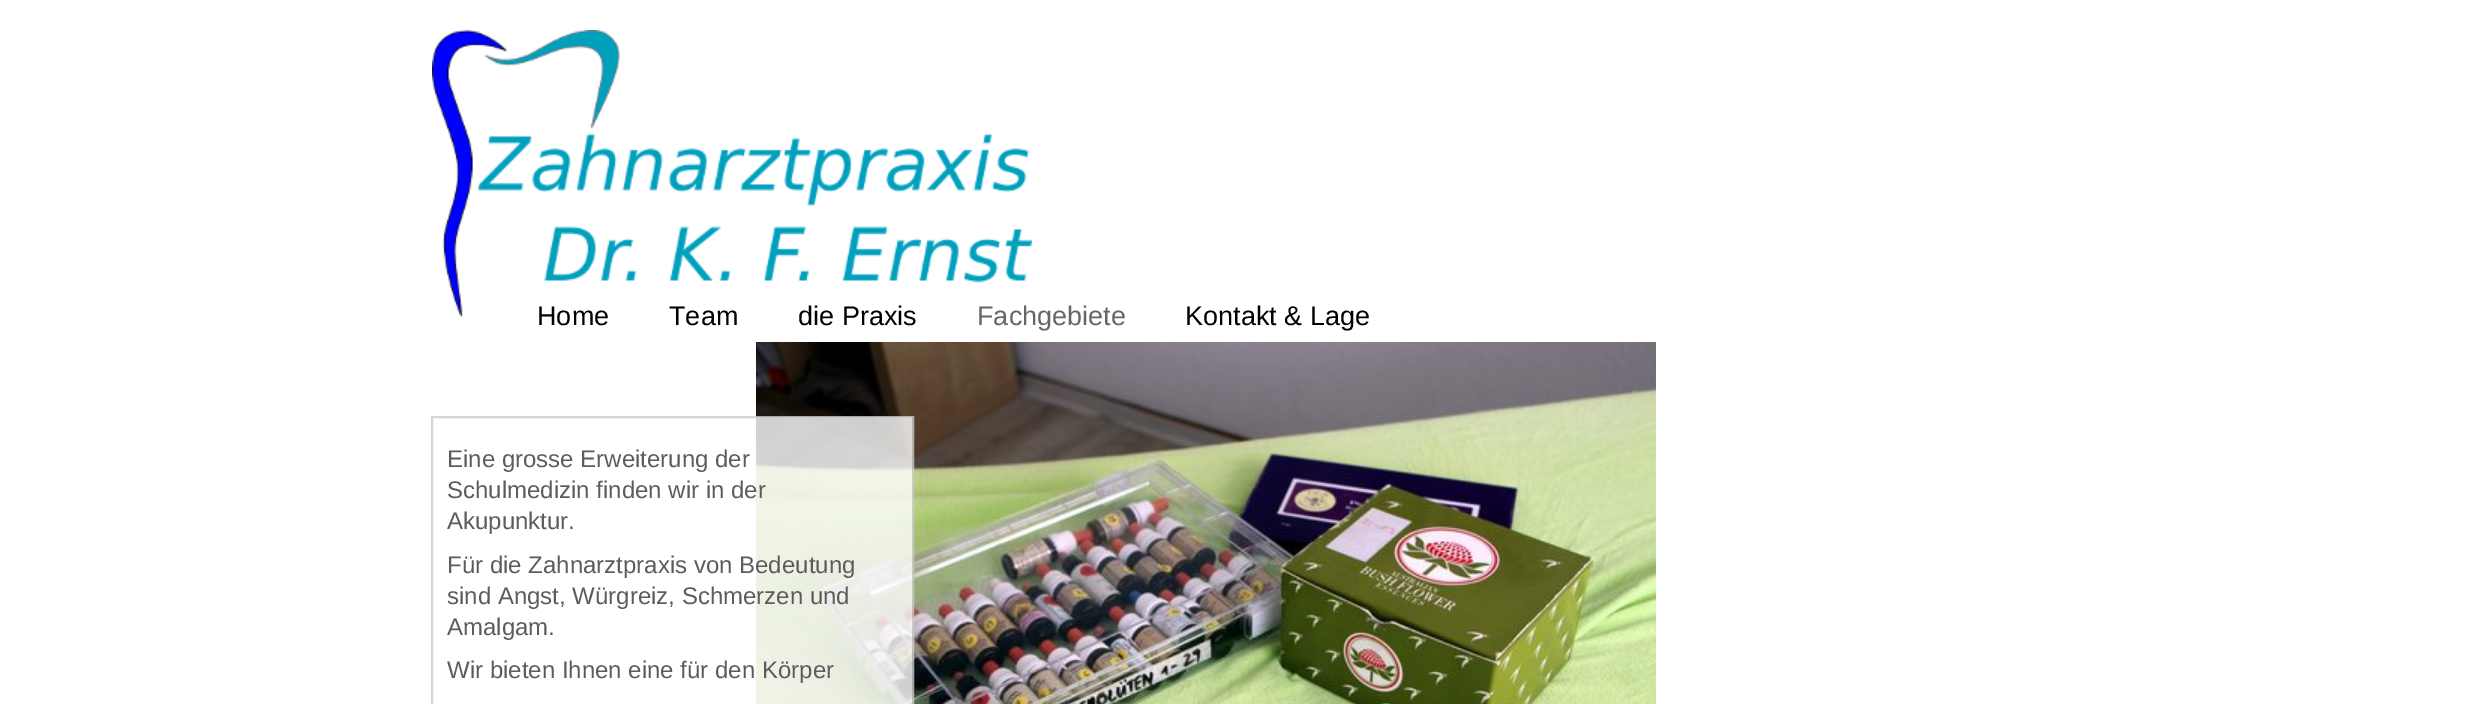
%!PS-Adobe-3.0
%%BoundingBox: 0 0 2480 704
%%LanguageLevel: 3
%%Pages: 1
%%EndComments
%%BeginProlog
/setink { 3 { 255 div 3 1 roll } repeat setrgbcolor } def
/usefont { [ exch dup neg 0 0 3 -1 roll 0 0 ] selectfont } def
/drawtext { setink usefont moveto show } def
/fillbox { setink rectfill } def
/setalpha { dup .setfillconstantalpha .setstrokeconstantalpha } def
/drawimage { 5 dict begin { /h /w /y /x /name } { exch def } forall
  gsave x y translate w h scale
  w h 8 [w 0 0 h 0 0] name (r) file false 3 colorimage grestore end } def
%%EndProlog
%%BeginSetup
<< /PageSize [2480 704] /PageUsesTransparency true >> setpagedevice
%%EndSetup
%%Page: 1 1
0 .pushpdf14devicefilter
0 704 translate 1 -1 scale
4 setmiterlimit
0 0 2480 704 255 255 255 fillbox
(assets/img1.rgb) 432 30 600 287 drawimage
(Home) 537 325 /LiberationSans-Regular 27 0 0 0 drawtext
(Team) 669 325 /LiberationSans-Regular 27 0 0 0 drawtext
(die Praxis) 798 325 /LiberationSans-Regular 27 0 0 0 drawtext
(Fachgebiete) 977 325 /LiberationSans-Regular 27 102 102 102 drawtext
(Kontakt & Lage) 1185 325 /LiberationSans-Regular 27 0 0 0 drawtext
(assets/img2.rgb) 756 342 900 362 drawimage
0.8 setalpha
756 417 156 287 255 255 255 fillbox
204 204 204 setink
2 setlinewidth
432 417 481 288 rectstroke
1 setalpha
(Eine grosse Erweiterung der) 447 467 /LiberationSans-Regular 24 92 92 92 drawtext
(Schulmedizin finden wir in der) 447 498 /LiberationSans-Regular 24 92 92 92 drawtext
(Akupunktur.) 447 529 /LiberationSans-Regular 24 92 92 92 drawtext
(Für die Zahnarztpraxis von Bedeutung) 447 573 /LiberationSans-Regular 24 92 92 92 drawtext
(sind Angst, Würgreiz, Schmerzen und) 447 604 /LiberationSans-Regular 24 92 92 92 drawtext
(Amalgam.) 447 635 /LiberationSans-Regular 24 92 92 92 drawtext
(Wir bieten Ihnen eine für den Körper) 447 678 /LiberationSans-Regular 24 92 92 92 drawtext
.poppdf14devicefilter showpage
%%EOF
